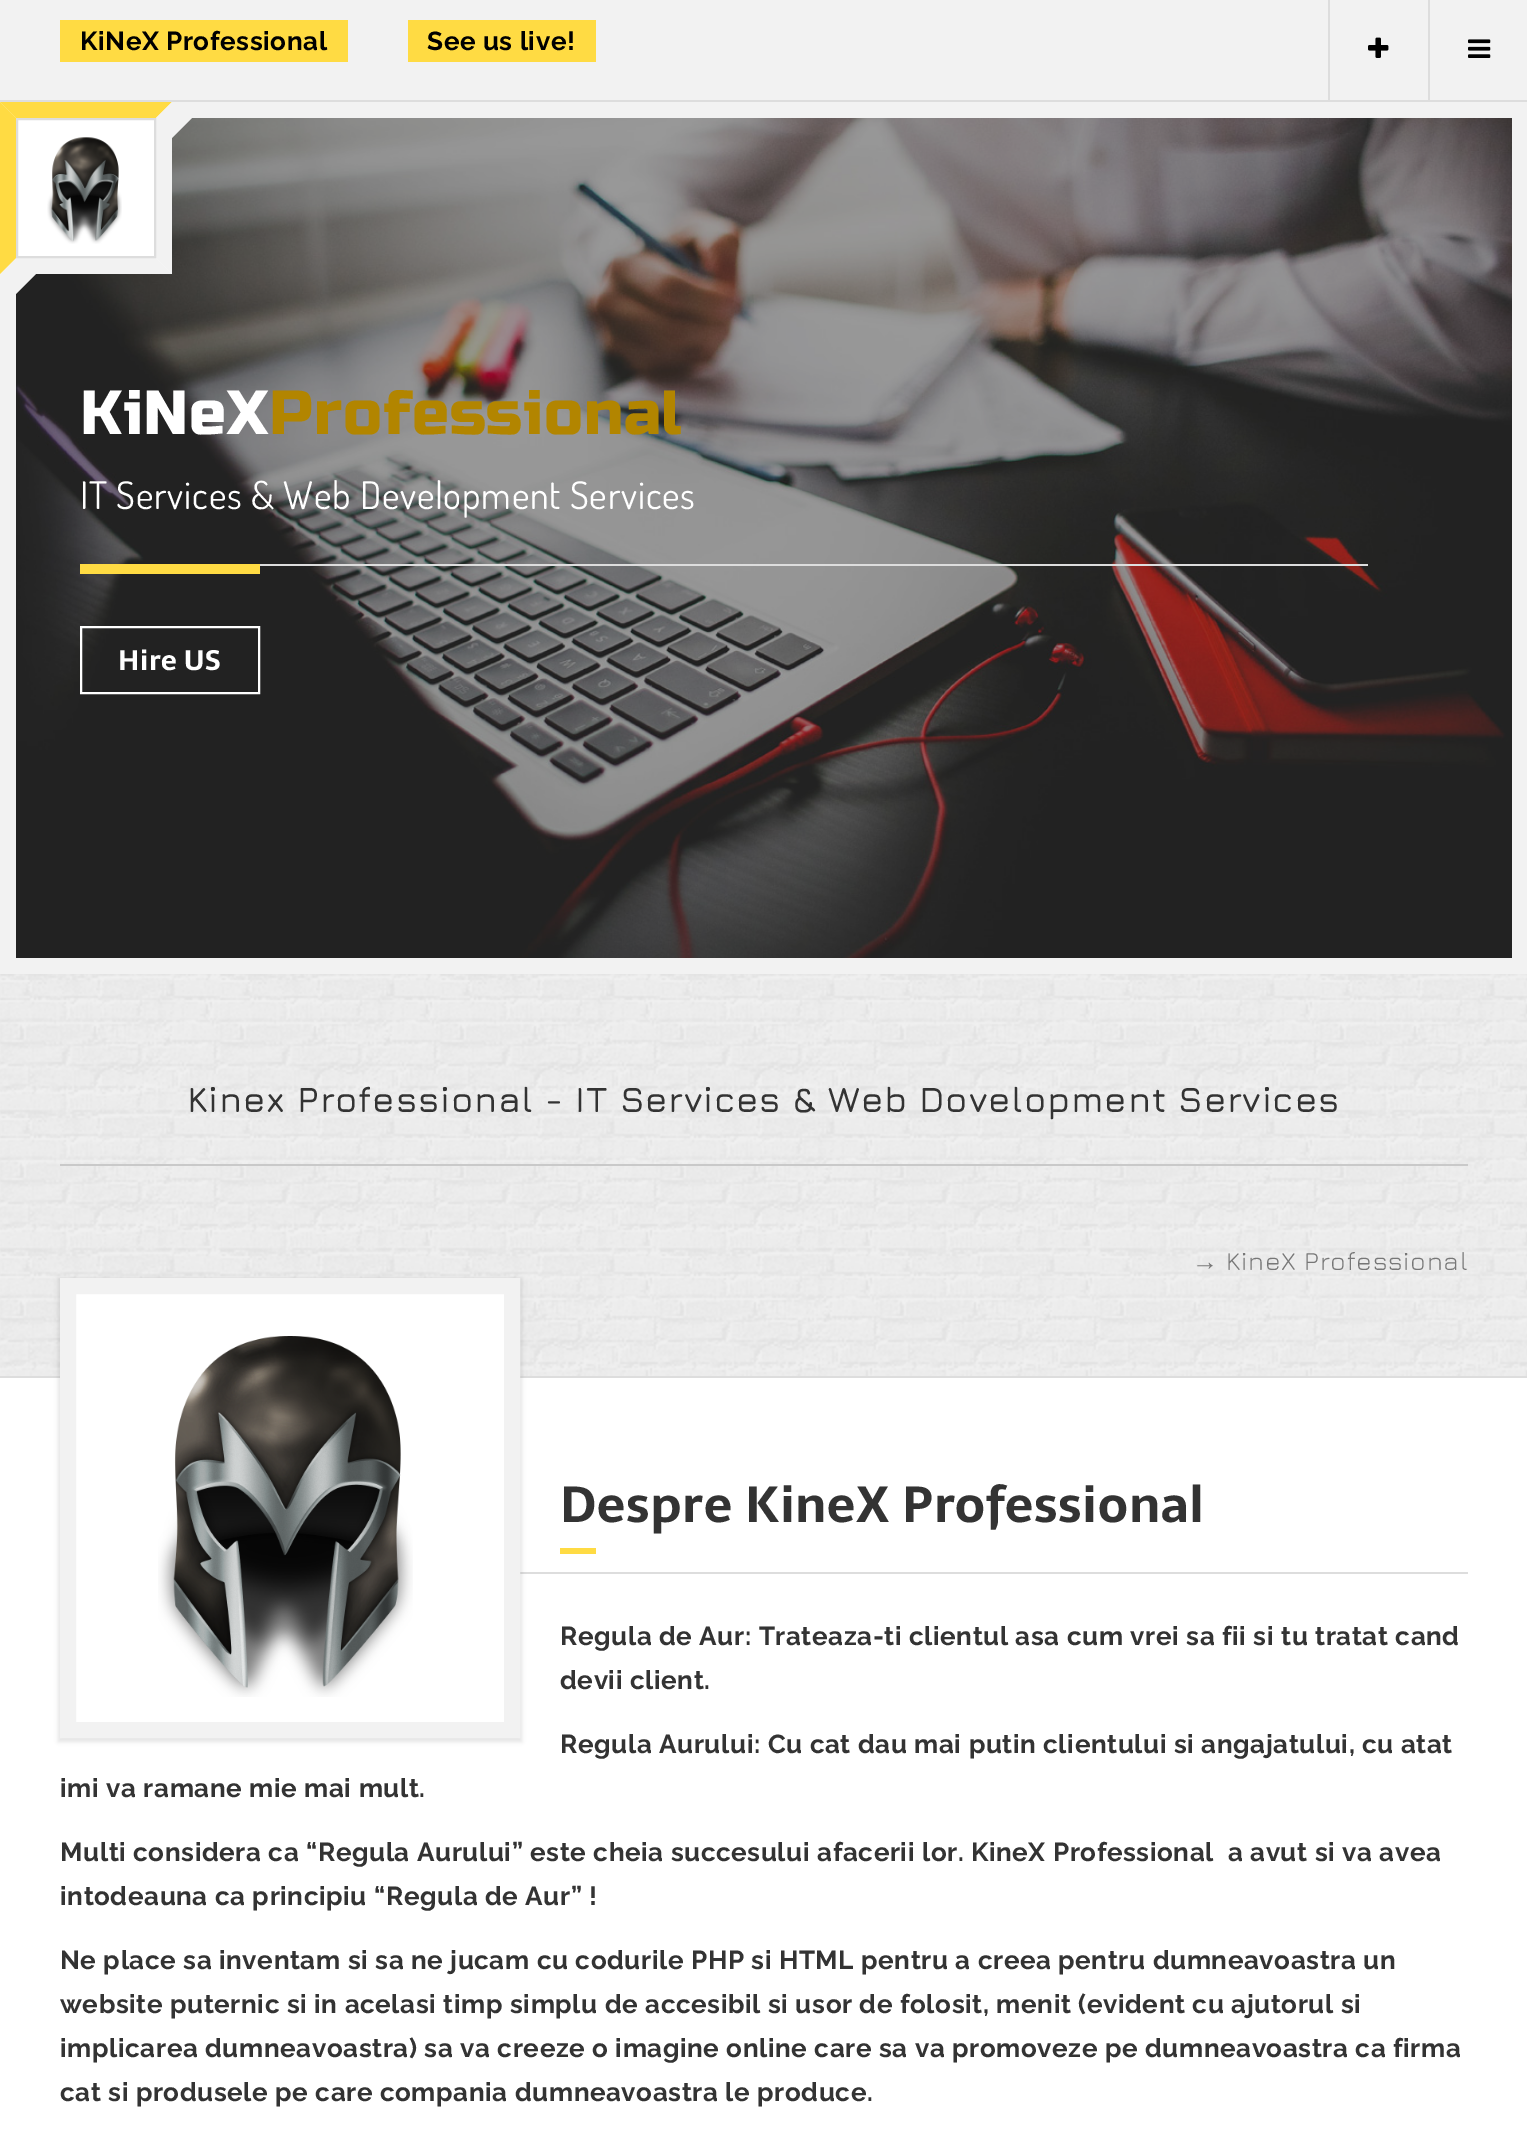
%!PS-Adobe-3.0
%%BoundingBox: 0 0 1527 2145
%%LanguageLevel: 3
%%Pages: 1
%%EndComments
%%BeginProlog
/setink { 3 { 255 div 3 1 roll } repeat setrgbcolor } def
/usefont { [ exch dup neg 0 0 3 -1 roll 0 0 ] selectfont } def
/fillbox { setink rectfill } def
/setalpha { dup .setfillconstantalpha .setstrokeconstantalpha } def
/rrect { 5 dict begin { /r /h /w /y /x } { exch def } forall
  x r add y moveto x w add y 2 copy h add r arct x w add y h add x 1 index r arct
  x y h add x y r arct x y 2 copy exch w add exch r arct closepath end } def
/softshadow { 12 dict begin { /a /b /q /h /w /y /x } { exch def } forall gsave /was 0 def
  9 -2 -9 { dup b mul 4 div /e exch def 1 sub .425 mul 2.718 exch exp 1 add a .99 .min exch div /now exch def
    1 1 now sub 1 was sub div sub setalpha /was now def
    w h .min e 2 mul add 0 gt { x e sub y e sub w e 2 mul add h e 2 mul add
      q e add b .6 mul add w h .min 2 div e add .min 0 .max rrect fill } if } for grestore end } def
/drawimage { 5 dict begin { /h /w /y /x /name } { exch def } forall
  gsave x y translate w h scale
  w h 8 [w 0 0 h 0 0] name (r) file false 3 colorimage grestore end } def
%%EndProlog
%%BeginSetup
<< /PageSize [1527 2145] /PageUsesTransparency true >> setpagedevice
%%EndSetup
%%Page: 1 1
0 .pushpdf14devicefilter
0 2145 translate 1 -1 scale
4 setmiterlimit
0 0 1527 2145 255 255 255 fillbox
0 0 1527 100 242 242 242 fillbox
0 100 1527 2 221 221 221 fillbox
60 20 288 42 255 219 67 fillbox
/Raleway-Bold 26 usefont
0 0 0 setink
80 50 moveto 0.6 0 (KiNeX Professional) ashow
408 20 188 42 255 219 67 fillbox
0 0 0 setink
427 50 moveto 0.6 0 (See us live!) ashow
1328 0 2 100 221 221 221 fillbox
(assets/img1.rgb) 1368 37 21 21 drawimage
1428 0 2 100 221 221 221 fillbox
(assets/img2.rgb) 1468 39 23 19 drawimage
(assets/img3.rgb) 16 118 1496 840 drawimage
0 274 16 700 242 242 242 fillbox
172 102 1340 16 242 242 242 fillbox
1512 102 15 872 242 242 242 fillbox
16 958 1496 16 242 242 242 fillbox
16 118 156 156 255 255 255 fillbox
255 219 67 setink
0 102 moveto 172 102 lineto 156 118 lineto 16 118 lineto closepath fill
242 242 242 setink
172 102 moveto 172 274 lineto 156 258 lineto 156 118 lineto closepath fill
172 274 moveto 0 274 lineto 16 258 lineto 156 258 lineto closepath fill
255 219 67 setink
0 274 moveto 0 102 lineto 16 118 lineto 16 258 lineto closepath fill
221 221 221 setink
2 setlinewidth
17 119 138 138 rectstroke
(assets/img4.rgb) 47 137 75 107 drawimage
242 242 242 setink
172 118 moveto 192 118 lineto 172 138 lineto closepath fill
16 274 moveto 36 274 lineto 16 294 lineto closepath fill
/RussoOne-Regular 62 usefont
255 255 255 setink
80 434 moveto 0.8 0 (KiNeX) ashow
178 133 0 setink
269 434 moveto 0.8 0 (Professional) ashow
260 564 1108 2 221 221 221 fillbox
/Dosis-Regular 38 usefont
255 255 255 setink
80 509 moveto 0.8 0 (IT Services & Web Development Services) ashow
80 564 180 10 255 219 67 fillbox
255 255 255 setink
81 627 178 66 rectstroke
/Sarala-Bold 28 usefont
118 670 moveto 0.6 0 (Hire US) ashow
(assets/img5.rgb) 0 974 1527 402 drawimage
60 1164 1408 2 201 201 201 fillbox
/Jura-SemiBold 36 usefont
51 51 51 setink
187 1112 moveto 0.8 0 (Kinex Professional - IT Services & Web Dovelopment Services) ashow
/LiberationSans-Regular 26 usefont
119 119 119 setink
1192 1270 moveto 0.8 0 (→) ashow
/Jura-Regular 26 usefont
1226 1270 moveto 0.8 0 (KineX Professional) ashow
0 1376 1527 2 221 221 221 fillbox
520 1572 948 2 221 221 221 fillbox
0 0 0 setink
58 1278 464 464 0 2 0.1 softshadow
255 255 255 setink
68 1286 moveto 512 1286 lineto 512 1730 lineto 68 1730 lineto closepath gsave fill grestore
242 242 242 setink
16 setlinewidth
stroke
(assets/img6.rgb) 158 1336 255 361 drawimage
/Sarala-Bold 50 usefont
51 51 51 setink
560 1522 moveto 0.8 0 (Despre KineX Professional) ashow
560 1548 36 6 255 219 67 fillbox
/Raleway-Bold 26 usefont
51 51 51 setink
560 1645 moveto 0.6 0 (Regula de Aur: Trateaza-ti clientul asa cum vrei sa fii si tu tratat cand) ashow
560 1689 moveto 0.6 0 (devii client.) ashow
560 1753 moveto 0.6 0 (Regula Aurului: Cu cat dau mai putin clientului si angajatului, cu atat) ashow
60 1797 moveto 0.6 0 (imi va ramane mie mai mult.) ashow
60 1861 moveto 0.6 0 (Multi considera ca “Regula Aurului” este cheia succesului afacerii lor. KineX Professional  a avut si va avea) ashow
60 1905 moveto 0.6 0 (intodeauna ca principiu “Regula de Aur” !) ashow
60 1969 moveto 0.6 0 (Ne place sa inventam si sa ne jucam cu codurile PHP si HTML pentru a creea pentru dumneavoastra un) ashow
60 2013 moveto 0.6 0 (website puternic si in acelasi timp simplu de accesibil si usor de folosit, menit \(evident cu ajutorul si) ashow
60 2057 moveto 0.6 0 (implicarea dumneavoastra\) sa va creeze o imagine online care sa va promoveze pe dumneavoastra ca firma) ashow
60 2101 moveto 0.6 0 (cat si produsele pe care compania dumneavoastra le produce.) ashow
.poppdf14devicefilter showpage
%%EOF
